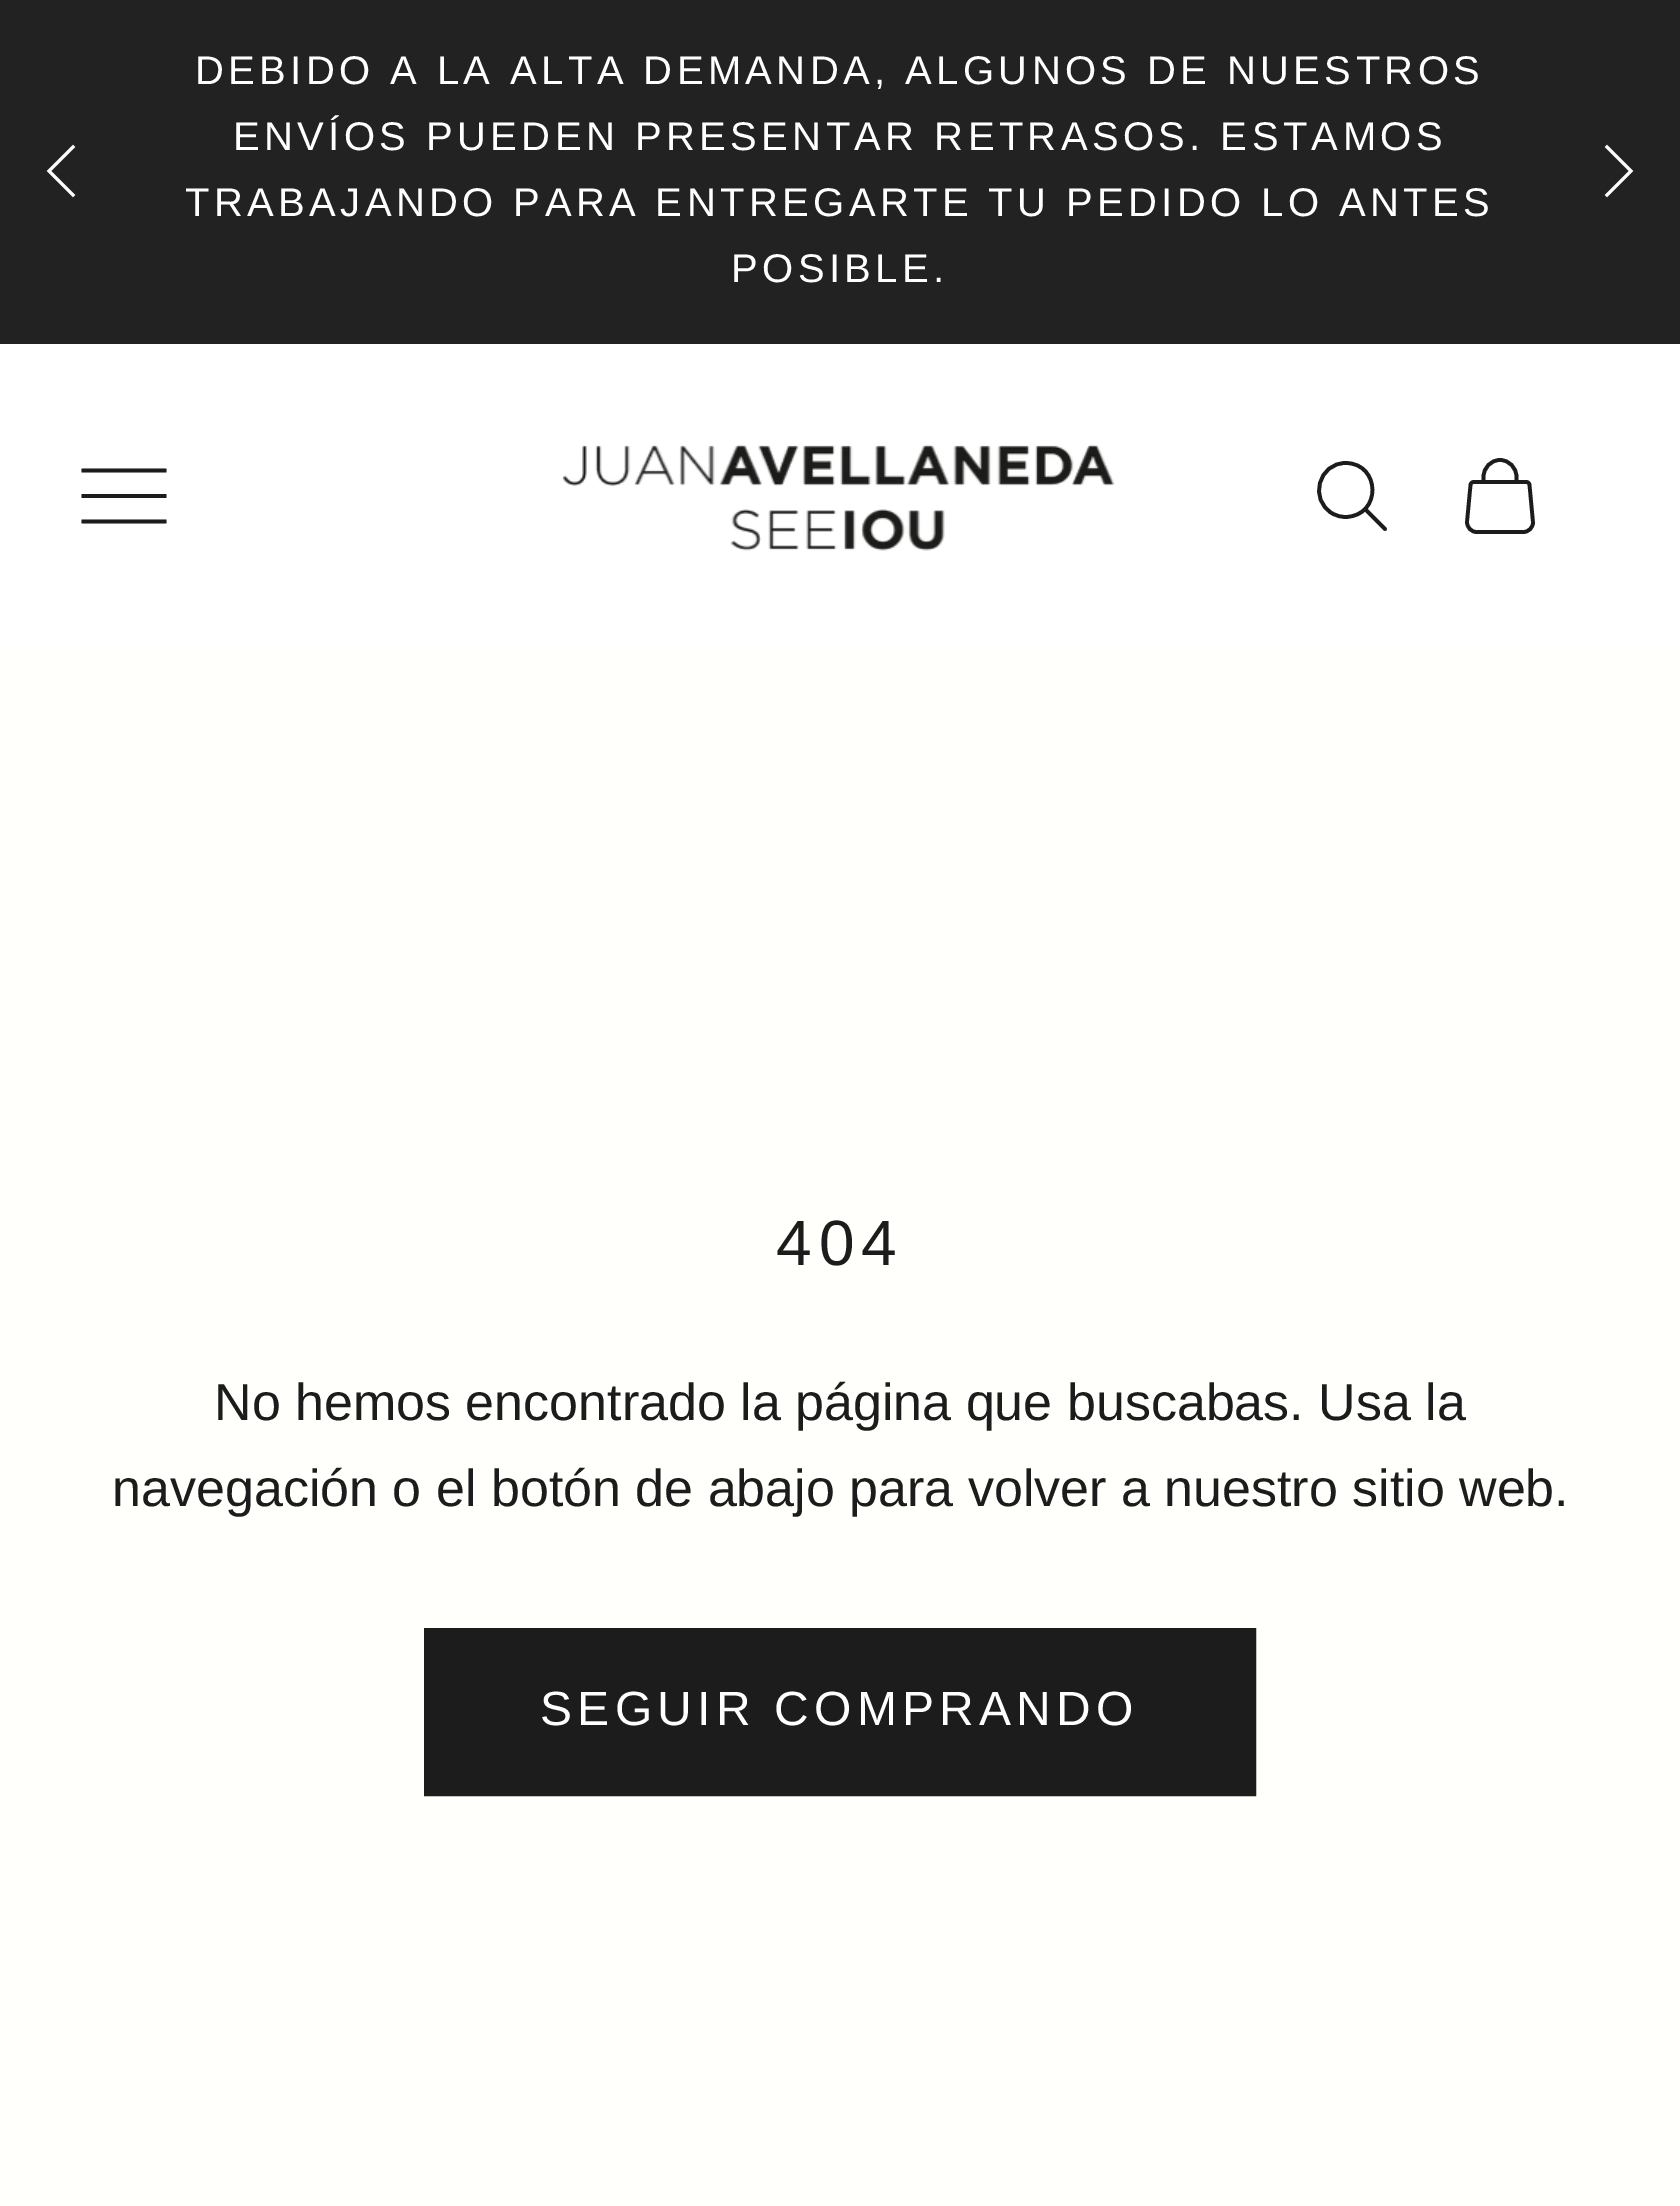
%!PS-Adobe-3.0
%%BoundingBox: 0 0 1680 2206
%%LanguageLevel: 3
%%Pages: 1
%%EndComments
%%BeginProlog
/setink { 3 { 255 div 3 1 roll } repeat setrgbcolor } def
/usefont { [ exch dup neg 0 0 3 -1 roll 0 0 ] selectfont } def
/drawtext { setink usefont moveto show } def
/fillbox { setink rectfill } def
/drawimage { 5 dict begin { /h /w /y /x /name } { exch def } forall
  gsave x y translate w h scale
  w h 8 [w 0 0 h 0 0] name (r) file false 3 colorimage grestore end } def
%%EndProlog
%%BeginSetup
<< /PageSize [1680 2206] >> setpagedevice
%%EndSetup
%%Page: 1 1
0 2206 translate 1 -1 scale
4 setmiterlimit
0 0 1680 2206 255 255 252 fillbox
0 0 1680 344 34 34 34 fillbox
255 255 255 setink
3 setlinewidth
2 setlinecap
73 147 moveto 49 171 lineto 73 195 lineto stroke
/LiberationSans-Regular 40 usefont
195 84 moveto 4.4 0 (DEBIDO A LA ALTA DEMANDA, ALGUNOS DE NUESTROS) ashow
233 150 moveto 4.4 0 (ENVÍOS PUEDEN PRESENTAR RETRASOS. ESTAMOS) ashow
185 216 moveto 4.4 0 (TRABAJANDO PARA ENTREGARTE TU PEDIDO LO ANTES) ashow
731 282 moveto 4.4 0 (POSIBLE.) ashow
1607 195 moveto 1631 171 lineto 1607 147 lineto stroke
0 344 1680 304 255 255 255 fillbox
28 28 28 setink
3.7 setlinewidth
83.5 521.5 moveto 164.5 521.5 lineto 83.5 496 moveto 164.5 496 lineto 83.5 470.5 moveto 164.5 470.5 lineto stroke
(assets/img1.rgb) 562 444 553 107 drawimage
0 setlinecap
1346 463 moveto 1318.5 462.5 1308.5 500 1332.5 513.5 curveto 1336.5 516 1341.5 517 1346 517 curveto 1382 515.5 1380.5 463.5 1346 463 curveto closepath stroke
1 setlinecap
1366 510 moveto 1385 529 lineto stroke
1 setlinejoin
1473.5 482 moveto 1472 482 1470.5 483.5 1470.5 485 curveto 1467 522 lineto 1467 527.5 1471.5 532 1476.5 532 curveto 1523.5 532 lineto 1528.5 532 1533 527.5 1533 522.5 curveto 1529.5 485 lineto 1529.5 483.5 1528 482 1526.5 482 curveto closepath 1483.5 482 moveto 1483.5 477 lineto 1483.5 467.5 1491 460 1500 460 curveto 1509 460 1516.5 467.5 1516.5 477 curveto 1516.5 482 lineto stroke
/LiberationSans-Regular 64 usefont
776 1265 moveto 7 0 (404) ashow
(No hemos encontrado la página que buscabas. Usa la) 214 1420 /LiberationSans-Regular 52 28 28 28 drawtext
(navegación o el botón de abajo para volver a nuestro sitio web.) 112 1506 /LiberationSans-Regular 52 28 28 28 drawtext
426 1630 moveto 1254 1630 lineto 1254 1794 lineto 426 1794 lineto closepath gsave fill grestore
4 setlinewidth
0 setlinecap
0 setlinejoin
stroke
/LiberationSans-Regular 48 usefont
255 255 255 setink
540 1725 moveto 5.25 0 (SEGUIR COMPRANDO) ashow
showpage
%%EOF
